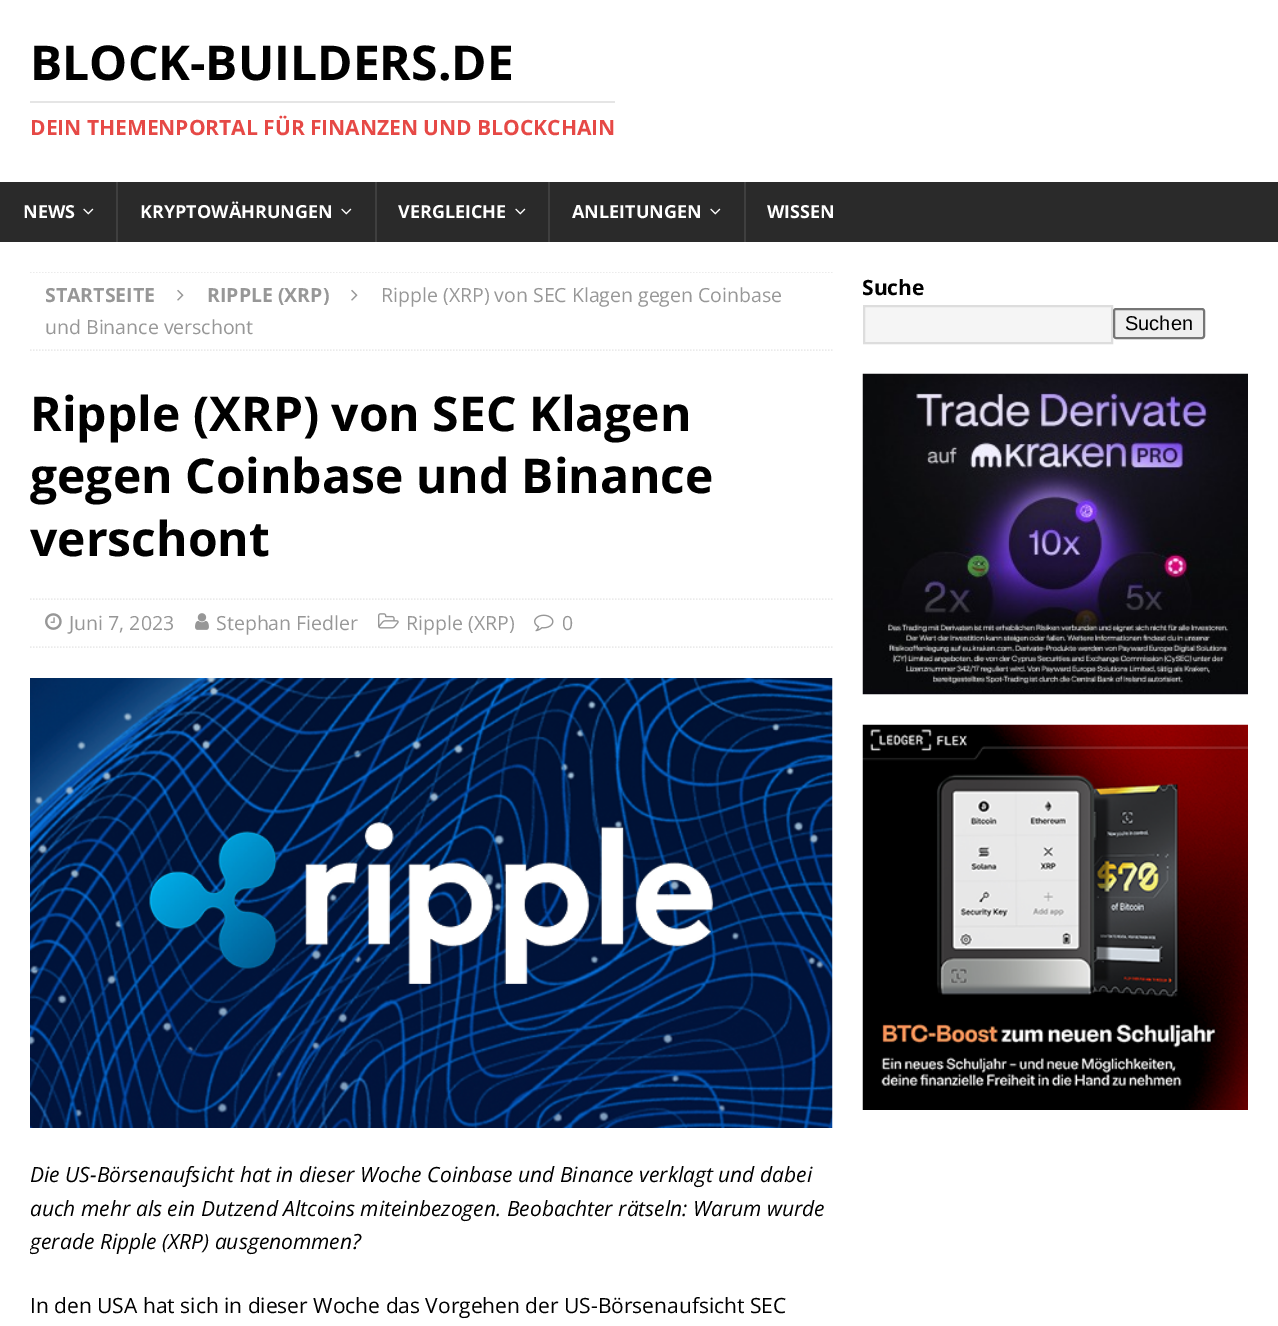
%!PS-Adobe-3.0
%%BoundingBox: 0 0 1278 1326
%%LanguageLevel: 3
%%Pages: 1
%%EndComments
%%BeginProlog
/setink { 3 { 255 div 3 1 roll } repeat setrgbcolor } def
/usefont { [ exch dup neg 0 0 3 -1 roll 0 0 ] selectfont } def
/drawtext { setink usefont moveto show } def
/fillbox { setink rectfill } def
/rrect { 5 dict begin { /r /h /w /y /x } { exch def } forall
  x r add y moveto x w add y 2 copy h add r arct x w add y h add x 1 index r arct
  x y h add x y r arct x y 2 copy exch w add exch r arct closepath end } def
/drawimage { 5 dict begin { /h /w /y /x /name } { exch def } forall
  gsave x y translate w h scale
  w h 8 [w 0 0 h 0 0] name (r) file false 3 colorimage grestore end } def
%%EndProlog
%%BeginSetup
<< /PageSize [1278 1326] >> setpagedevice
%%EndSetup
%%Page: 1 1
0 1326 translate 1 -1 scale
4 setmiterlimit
0 0 1278 1326 255 255 255 fillbox
(BLOCK-BUILDERS.DE) 30 80 /OpenSans-Bold 48 0 0 0 drawtext
30 101 585 2 229 229 229 fillbox
(DEIN THEMENPORTAL FÜR FINANZEN UND BLOCKCHAIN) 30 135 /OpenSans-Bold 21 230 73 70 drawtext
0 182 1278 60 42 42 42 fillbox
(NEWS) 23 218 /OpenSans-Bold 18 255 255 255 drawtext
(assets/img1.rgb) 83 208 11 7 drawimage
116 182 2 60 63 63 63 fillbox
(KRYPTOWÄHRUNGEN) 140 218 /OpenSans-Bold 18 255 255 255 drawtext
(assets/img1.rgb) 341 208 11 7 drawimage
375 182 2 60 63 63 63 fillbox
(VERGLEICHE) 398 218 /OpenSans-Bold 18 255 255 255 drawtext
(assets/img1.rgb) 515 208 11 7 drawimage
548 182 2 60 63 63 63 fillbox
(ANLEITUNGEN) 572 218 /OpenSans-Bold 18 255 255 255 drawtext
(assets/img1.rgb) 710 208 11 7 drawimage
744 182 2 60 63 63 63 fillbox
(WISSEN) 767 218 /OpenSans-Bold 18 255 255 255 drawtext
gsave
30 272 803 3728 rectclip
235 235 235 setink
1.5 setlinewidth
[1.5 1.5] 0 setdash
30 272 moveto 832.5 272 lineto stroke
grestore
235 235 235 setink
1.5 setlinewidth
[1.5 1.5] 0 setdash
30 350 moveto 832.5 350 lineto stroke
(STARTSEITE) 45 302 /OpenSans-Bold 19.5 151 151 151 drawtext
(assets/img2.rgb) 177 289 7 12 drawimage
(RIPPLE \(XRP\)) 207 302 /OpenSans-Bold 19.5 151 151 151 drawtext
(assets/img2.rgb) 351 289 7 12 drawimage
(Ripple \(XRP\) von SEC Klagen gegen Coinbase) 381 302 /OpenSans-Regular 19.5 151 151 151 drawtext
(und Binance verschont) 45 334 /OpenSans-Regular 19.5 151 151 151 drawtext
(Ripple \(XRP\) von SEC Klagen) 30 431 /OpenSans-Bold 48 0 0 0 drawtext
(gegen Coinbase und Binance) 30 493 /OpenSans-Bold 48 0 0 0 drawtext
(verschont) 30 556 /OpenSans-Bold 48 0 0 0 drawtext
235 235 235 setink
30 599 moveto 832.5 599 lineto stroke
30 647 moveto 832.5 647 lineto stroke
(assets/img3.rgb) 45 613 17 17 drawimage
(Juni 7, 2023) 69 630 /OpenSans-Regular 19.5 151 151 151 drawtext
(assets/img4.rgb) 195 613 14 17 drawimage
(Stephan Fiedler) 216 630 /OpenSans-Regular 19.5 151 151 151 drawtext
(assets/img5.rgb) 378 613 21 16 drawimage
(Ripple \(XRP\)) 406 630 /OpenSans-Regular 19.5 151 151 151 drawtext
(assets/img6.rgb) 534 614 20 18 drawimage
(0) 562 630 /OpenSans-Regular 19.5 151 151 151 drawtext
(assets/img7.rgb) 30 678 803 450 drawimage
(Die US-Börsenaufsicht hat in dieser Woche Coinbase und Binance verklagt und dabei) 30 1182 /OpenSans-Italic 21 0 0 0 drawtext
(auch mehr als ein Dutzend Altcoins miteinbezogen. Beobachter rätseln: Warum wurde) 30 1216 /OpenSans-Italic 21 0 0 0 drawtext
gsave
30 272 803 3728 rectclip
(gerade Ripple \(XRP\) ausgenommen?) 30 1249 /OpenSans-Italic 21 0 0 0 drawtext
grestore
(In den USA hat sich in dieser Woche das Vorgehen der US-Börsenaufsicht SEC) 30 1313 /OpenSans-Regular 21 0 0 0 drawtext
(Suche) 862 295 /OpenSans-Bold 21 0 0 0 drawtext
245 245 245 setink
864 306 moveto 1112 306 lineto 1112 343 lineto 864 343 lineto closepath gsave fill grestore
221 221 221 setink
2 setlinewidth
[] 0 setdash
stroke
239 239 239 setink
1114 309 90 29 2 rrect gsave fill grestore
118 118 118 setink
stroke
(Suchen) 1125 330 /LiberationSans-Regular 20 0 0 0 drawtext
(assets/img8.rgb) 862 373 386 322 drawimage
(assets/img9.rgb) 862 724 386 386 drawimage
showpage
%%EOF
